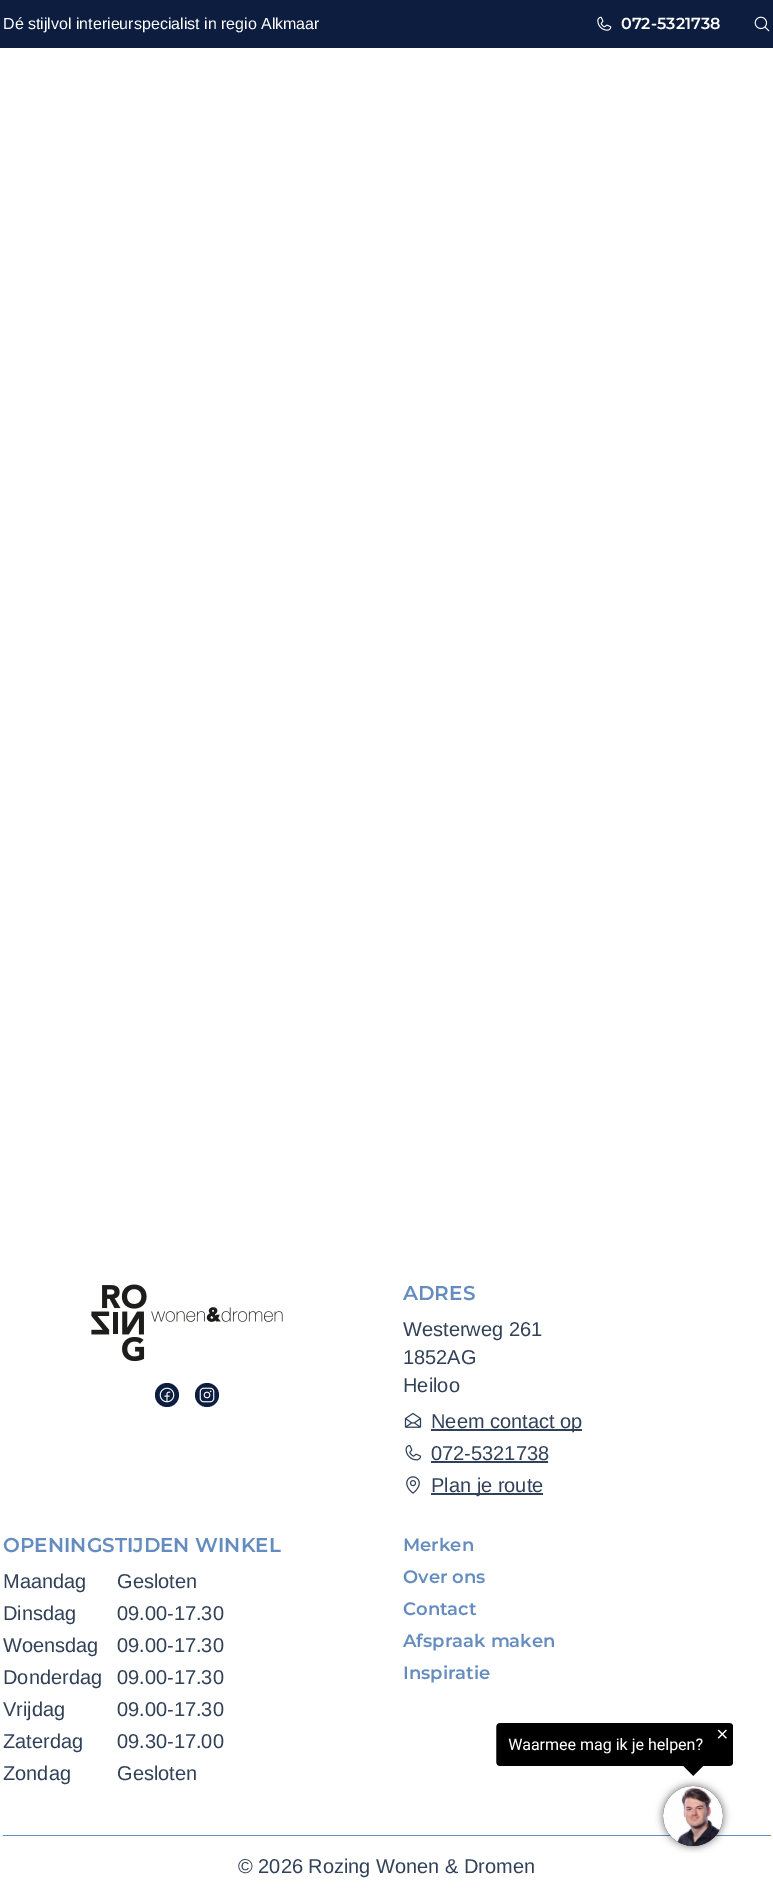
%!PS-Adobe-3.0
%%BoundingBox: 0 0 773 1896
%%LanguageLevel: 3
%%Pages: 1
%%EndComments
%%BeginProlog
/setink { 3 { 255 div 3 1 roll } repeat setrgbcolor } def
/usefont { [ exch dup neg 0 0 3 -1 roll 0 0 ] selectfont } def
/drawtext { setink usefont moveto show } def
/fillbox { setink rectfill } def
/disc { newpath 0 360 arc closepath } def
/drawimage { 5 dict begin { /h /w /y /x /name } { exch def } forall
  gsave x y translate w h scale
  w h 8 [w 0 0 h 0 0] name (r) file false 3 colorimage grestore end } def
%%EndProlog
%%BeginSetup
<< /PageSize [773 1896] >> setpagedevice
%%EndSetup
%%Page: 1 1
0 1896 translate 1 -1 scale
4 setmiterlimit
0 0 773 1896 255 255 255 fillbox
0 0 773 48 12 29 64 fillbox
(Dé stijlvol interieurspecialist in regio Alkmaar) 3 29 /LiberationSans-Regular 16 255 255 255 drawtext
(assets/img1.rgb) 597 16 15 15 drawimage
(072-5321738) 621 29 /Montserrat-SemiBold 16 255 255 255 drawtext
(assets/img2.rgb) 754 16 16 16 drawimage
(assets/img3.rgb) 91 1284 192 78 drawimage
12 29 64 setink
167 1395 12 disc fill
(assets/img4.rgb) 159 1387 16 16 drawimage
207 1395 12 disc fill
(assets/img5.rgb) 199 1387 16 16 drawimage
(ADRES) 403 1300 /Montserrat-SemiBold 20 101 140 191 drawtext
(Westerweg 261) 403 1336 /LiberationSans-Regular 20 49 65 88 drawtext
(1852AG) 403 1364 /LiberationSans-Regular 20 49 65 88 drawtext
(Heiloo) 403 1392 /LiberationSans-Regular 20 49 65 88 drawtext
(assets/img6.rgb) 404 1412 18 16 drawimage
431 1429 151 2 49 65 88 fillbox
(Neem contact op) 431 1428 /LiberationSans-Regular 20 49 65 88 drawtext
(assets/img7.rgb) 405 1444 17 17 drawimage
(072-5321738) 431 1460 /LiberationSans-Regular 20 49 65 88 drawtext
431 1461 117 2 49 65 88 fillbox
(assets/img8.rgb) 406 1476 14 18 drawimage
431 1493 112 2 49 65 88 fillbox
(Plan je route) 431 1492 /LiberationSans-Regular 20 49 65 88 drawtext
(OPENINGSTIJDEN WINKEL) 3 1552 /Montserrat-SemiBold 20 101 140 191 drawtext
(Maandag) 3 1588 /LiberationSans-Regular 20 49 65 88 drawtext
(Gesloten) 117 1588 /LiberationSans-Regular 20 49 65 88 drawtext
(Dinsdag) 3 1620 /LiberationSans-Regular 20 49 65 88 drawtext
(09.00-17.30) 117 1620 /LiberationSans-Regular 20 49 65 88 drawtext
(Woensdag) 3 1652 /LiberationSans-Regular 20 49 65 88 drawtext
(09.00-17.30) 117 1652 /LiberationSans-Regular 20 49 65 88 drawtext
(Donderdag) 3 1684 /LiberationSans-Regular 20 49 65 88 drawtext
(09.00-17.30) 117 1684 /LiberationSans-Regular 20 49 65 88 drawtext
(Vrijdag) 3 1716 /LiberationSans-Regular 20 49 65 88 drawtext
(09.00-17.30) 117 1716 /LiberationSans-Regular 20 49 65 88 drawtext
(Zaterdag) 3 1748 /LiberationSans-Regular 20 49 65 88 drawtext
(09.30-17.00) 117 1748 /LiberationSans-Regular 20 49 65 88 drawtext
(Zondag) 3 1780 /LiberationSans-Regular 20 49 65 88 drawtext
(Gesloten) 117 1780 /LiberationSans-Regular 20 49 65 88 drawtext
(Merken) 403 1551 /Montserrat-SemiBold 18 101 140 191 drawtext
(Over ons) 403 1583 /Montserrat-SemiBold 18 101 140 191 drawtext
(Contact) 403 1615 /Montserrat-SemiBold 18 101 140 191 drawtext
(Afspraak maken) 403 1647 /Montserrat-SemiBold 18 101 140 191 drawtext
(Inspiratie) 403 1679 /Montserrat-SemiBold 18 101 140 191 drawtext
3 1835 768 1 101 140 191 fillbox
(© 2026 Rozing Wonen & Dromen) 238 1873 /LiberationSans-Regular 20 49 65 88 drawtext
(assets/img9.rgb) 496 1723 237 130 drawimage
showpage
%%EOF
